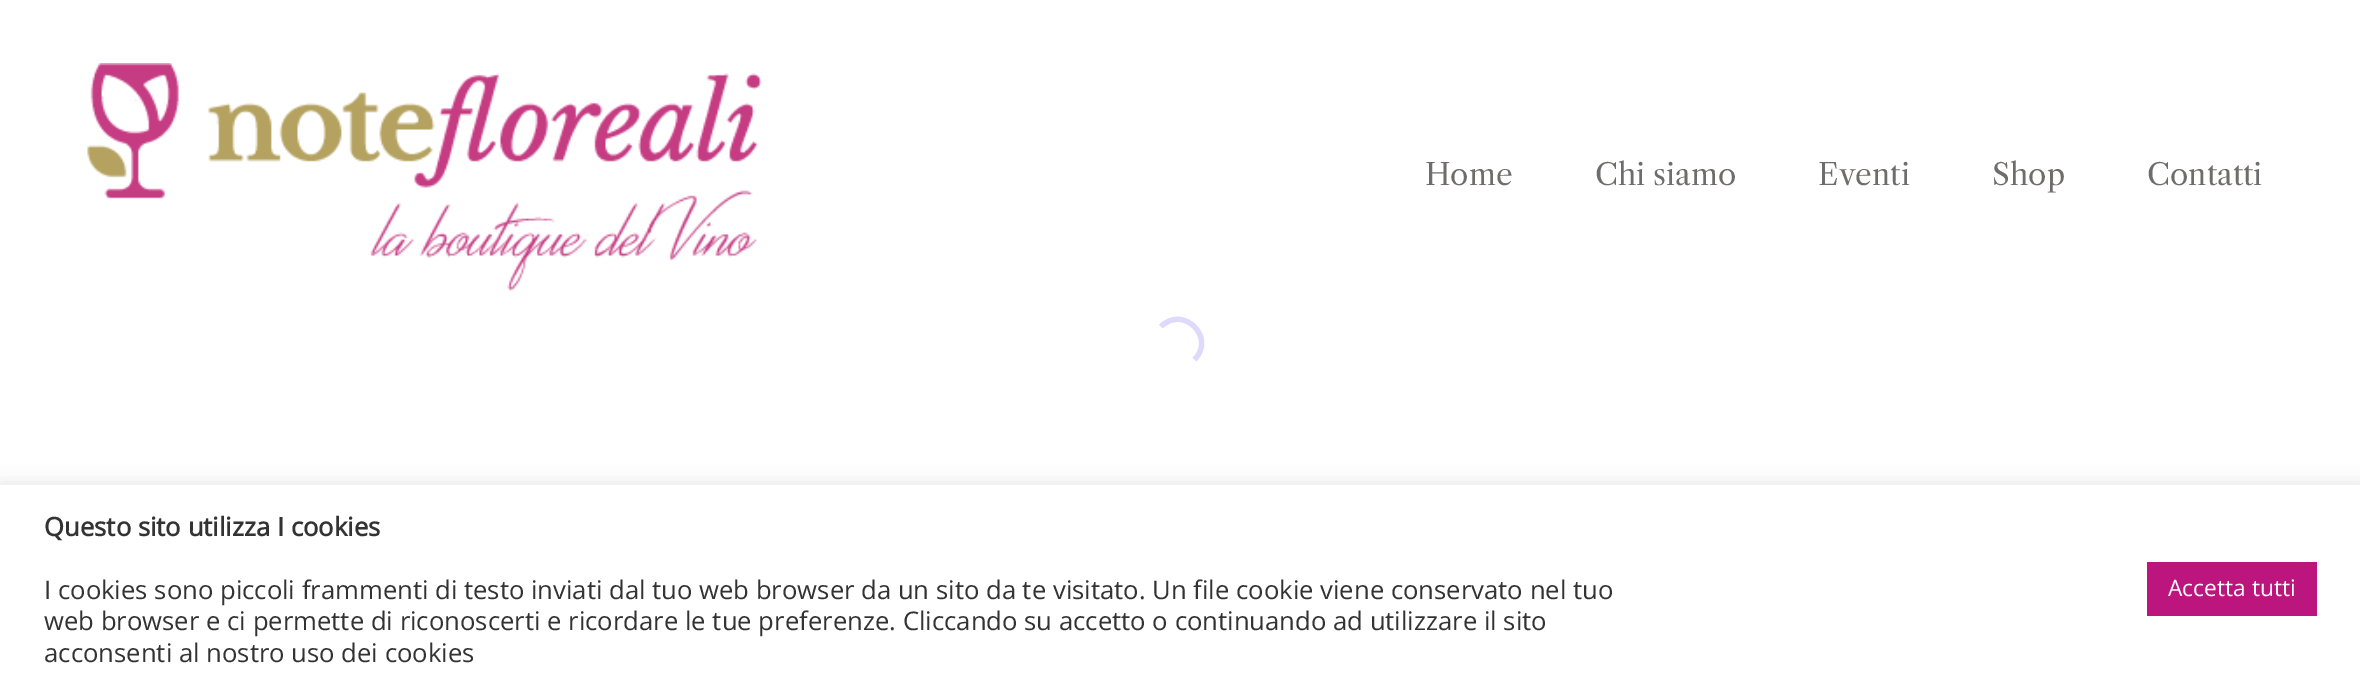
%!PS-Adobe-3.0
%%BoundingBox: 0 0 2360 691
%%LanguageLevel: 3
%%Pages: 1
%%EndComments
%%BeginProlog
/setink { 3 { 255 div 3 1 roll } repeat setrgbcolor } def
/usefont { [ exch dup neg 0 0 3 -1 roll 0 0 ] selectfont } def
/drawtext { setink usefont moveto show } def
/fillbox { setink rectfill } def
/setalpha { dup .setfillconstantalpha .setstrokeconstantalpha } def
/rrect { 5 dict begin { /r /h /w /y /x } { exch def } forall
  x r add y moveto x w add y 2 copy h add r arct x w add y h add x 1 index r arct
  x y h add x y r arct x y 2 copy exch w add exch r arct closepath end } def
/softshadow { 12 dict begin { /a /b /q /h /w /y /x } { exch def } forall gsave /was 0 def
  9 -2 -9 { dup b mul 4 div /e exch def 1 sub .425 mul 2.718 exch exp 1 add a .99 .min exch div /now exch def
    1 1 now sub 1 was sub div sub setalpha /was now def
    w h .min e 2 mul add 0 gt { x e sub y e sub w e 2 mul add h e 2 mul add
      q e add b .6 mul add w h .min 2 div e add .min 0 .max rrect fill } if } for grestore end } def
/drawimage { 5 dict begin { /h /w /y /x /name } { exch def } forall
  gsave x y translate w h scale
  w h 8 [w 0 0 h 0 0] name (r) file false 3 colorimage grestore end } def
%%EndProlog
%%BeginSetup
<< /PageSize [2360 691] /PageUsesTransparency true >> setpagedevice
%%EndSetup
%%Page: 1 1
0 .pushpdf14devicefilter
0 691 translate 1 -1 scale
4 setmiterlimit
0 0 2360 691 255 255 255 fillbox
(assets/img1.rgb) 87 63 675 228 drawimage
(Home) 1425 185 /LibreCaslonText-Regular 29.75 110 109 107 drawtext
(Chi siamo) 1595 185 /LibreCaslonText-Regular 29.75 110 109 107 drawtext
(Eventi) 1818 185 /LibreCaslonText-Regular 29.75 110 109 107 drawtext
(Shop) 1992 185 /LibreCaslonText-Regular 29.75 110 109 107 drawtext
(Contatti) 2147 185 /LibreCaslonText-Regular 29.75 110 109 107 drawtext
223 218 251 setink
5.2 setlinewidth
1161 326.5 moveto 1183 304.5 1216.5 337.5 1194.5 359.5 curveto stroke
172 171 171 setink
0 483 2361 207 0 9 0.3 softshadow
0 485 2360 206 255 255 255 fillbox
(Questo sito utilizza I cookies) 44 536 /OpenSans-Bold 25.67 51 51 51 drawtext
(I cookies sono piccoli frammenti di testo inviati dal tuo web browser da un sito da te visitato. Un file cookie viene conservato nel tuo) 44 599 /OpenSans-Regular 25.67 51 51 51 drawtext
(web browser e ci permette di riconoscerti e ricordare le tue preferenze. Cliccando su accetto o continuando ad utilizzare il sito) 44 630 /OpenSans-Regular 25.67 51 51 51 drawtext
(acconsenti al nostro uso dei cookies) 44 662 /OpenSans-Regular 25.67 51 51 51 drawtext
2147 562 170 54 189 21 126 fillbox
(Accetta tutti) 2168 596 /OpenSans-Regular 22.75 255 255 255 drawtext
.poppdf14devicefilter showpage
%%EOF
